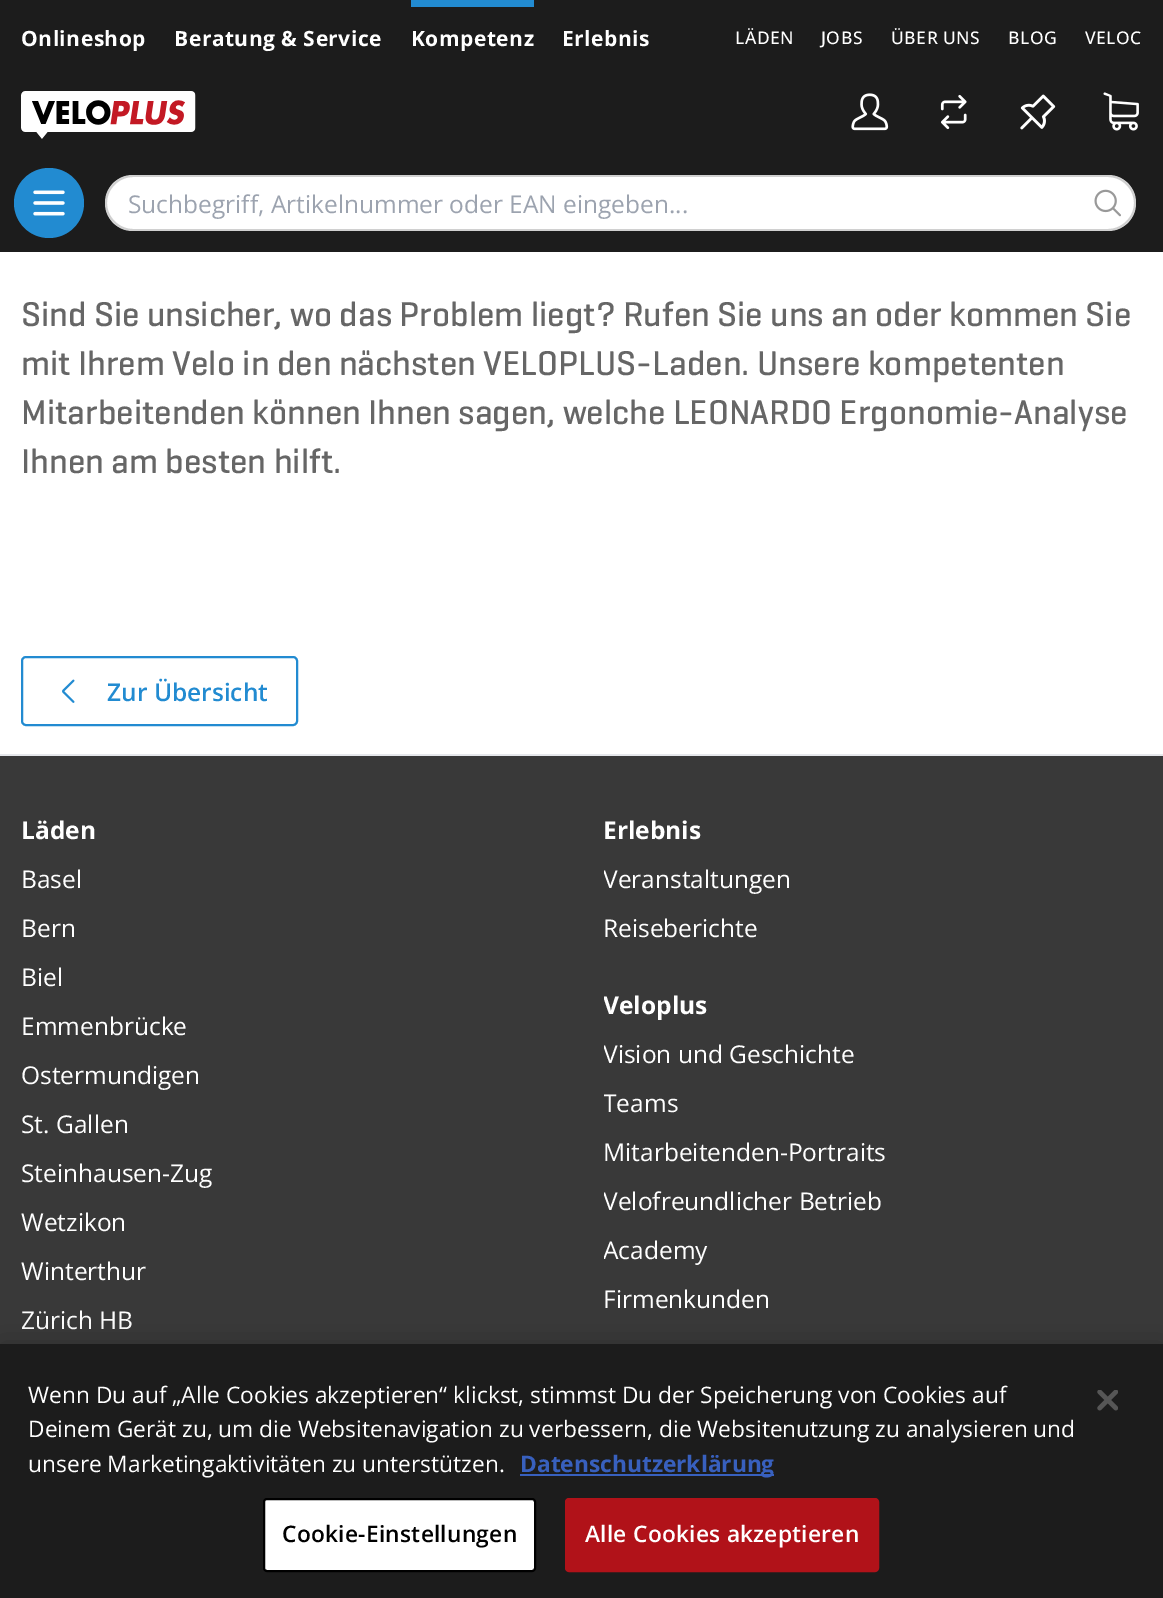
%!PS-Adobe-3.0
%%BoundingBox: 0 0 1163 1598
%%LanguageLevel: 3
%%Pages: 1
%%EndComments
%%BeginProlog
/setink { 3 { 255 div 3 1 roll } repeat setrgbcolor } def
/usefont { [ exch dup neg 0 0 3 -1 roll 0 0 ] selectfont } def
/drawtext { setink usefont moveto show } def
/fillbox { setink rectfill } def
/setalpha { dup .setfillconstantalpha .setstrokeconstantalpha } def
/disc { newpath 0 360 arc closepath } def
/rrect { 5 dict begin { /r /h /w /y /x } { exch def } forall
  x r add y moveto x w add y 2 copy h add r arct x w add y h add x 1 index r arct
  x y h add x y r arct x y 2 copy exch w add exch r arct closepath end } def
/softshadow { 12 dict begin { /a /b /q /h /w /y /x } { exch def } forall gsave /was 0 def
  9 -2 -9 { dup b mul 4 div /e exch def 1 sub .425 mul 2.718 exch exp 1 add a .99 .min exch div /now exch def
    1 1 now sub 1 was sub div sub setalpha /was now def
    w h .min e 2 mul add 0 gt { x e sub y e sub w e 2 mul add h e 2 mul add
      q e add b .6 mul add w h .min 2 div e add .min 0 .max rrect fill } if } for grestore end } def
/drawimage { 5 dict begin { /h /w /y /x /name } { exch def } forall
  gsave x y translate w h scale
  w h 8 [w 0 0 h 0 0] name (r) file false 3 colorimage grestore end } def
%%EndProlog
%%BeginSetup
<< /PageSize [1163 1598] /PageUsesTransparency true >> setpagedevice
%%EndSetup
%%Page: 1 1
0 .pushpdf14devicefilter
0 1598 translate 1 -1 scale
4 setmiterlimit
0 0 1163 1598 255 255 255 fillbox
0 0 1163 252 28 28 28 fillbox
/OpenSans-Bold 21 usefont
255 255 255 setink
21 46 moveto 0.5 0 (Onlineshop) ashow
174 46 moveto 0.5 0 (Beratung & Service) ashow
411 0 123 7 34 139 209 fillbox
255 255 255 setink
411 46 moveto 0.5 0 (Kompetenz) ashow
562 46 moveto 0.5 0 (Erlebnis) ashow
/OpenSans-Medium 17.5 usefont
735 44 moveto 0.5 0 (LÄDEN) ashow
821 44 moveto 0.5 0 (JOBS) ashow
891 44 moveto 0.5 0 (ÜBER UNS) ashow
1008 44 moveto 0.5 0 (BLOG) ashow
1085 44 moveto 0.5 0 (VELOC) ashow
(assets/img1.rgb) 21 91 175 48 drawimage
(assets/img2.rgb) 851 93 38 38 drawimage
(assets/img3.rgb) 940 94 27 36 drawimage
(assets/img4.rgb) 1020 94 36 36 drawimage
(assets/img5.rgb) 1103 92 36 39 drawimage
34 139 209 setink
49 203 35 disc fill
(assets/img6.rgb) 33 190 32 26 drawimage
255 255 255 setink
133 175 moveto 1085 175 lineto 1085 231 lineto 133 231 lineto 117.5 231 105 218.5 105 203 curveto 105 187.5 117.5 175 133 175 curveto closepath fill
0.2 setalpha
22 22 22 setink
133 175 moveto 1085 175 lineto 1085 231 lineto 133 231 lineto 118 231 105 218 105 203 curveto 105 188 118 175 133 175 curveto closepath 133 177 moveto 1085 177 lineto 1085 229 lineto 133 229 lineto 119 229 107 217 107 203 curveto 107 189 119 177 133 177 curveto closepath eofill
1 setalpha
(Suchbegriff, Artikelnummer oder EAN eingeben...) 128 213 /OpenSans-Regular 24.5 156 163 175 drawtext
255 255 255 setink
1083 175 moveto 1108 175 lineto 1123.5 175 1136 187.5 1136 203 curveto 1136 218.5 1123.5 231 1108 231 curveto 1083 231 lineto closepath fill
0.2 setalpha
22 22 22 setink
1083 175 moveto 1108 175 lineto 1123 175 1136 188 1136 203 curveto 1136 218 1123 231 1108 231 curveto 1083 231 lineto closepath 1083 177 moveto 1108 177 lineto 1122 177 1134 189 1134 203 curveto 1134 217 1122 229 1108 229 curveto 1083 229 lineto closepath eofill
1 setalpha
(assets/img7.rgb) 1094 189 27 28 drawimage
(Sind Sie unsicher, wo das Problem liegt? Rufen Sie uns an oder kommen Sie) 21 326 /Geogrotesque-Medium 35 102 102 102 drawtext
(mit Ihrem Velo in den nächsten VELOPLUS-Laden. Unsere kompetenten) 21 375 /Geogrotesque-Medium 35 102 102 102 drawtext
(Mitarbeitenden können Ihnen sagen, welche LEONARDO Ergonomie-Analyse) 21 424 /Geogrotesque-Medium 35 102 102 102 drawtext
(Ihnen am besten hilft.) 21 473 /Geogrotesque-Medium 35 102 102 102 drawtext
34 139 209 setink
2 setlinewidth
22 657 275 68 4 rrect stroke
(assets/img8.rgb) 62 679 13 24 drawimage
(Zur Übersicht) 107 701 /OpenSans-SemiBold 24.5 34 139 209 drawtext
0 754 1163 2 229 231 235 fillbox
0 756 1163 588 57 57 57 fillbox
(Läden) 21 839 /OpenSans-Bold 24.5 255 255 255 drawtext
(Basel) 21 888 /OpenSans-Regular 24.5 255 255 255 drawtext
(Bern) 21 937 /OpenSans-Regular 24.5 255 255 255 drawtext
(Biel) 21 986 /OpenSans-Regular 24.5 255 255 255 drawtext
(Emmenbrücke) 21 1035 /OpenSans-Regular 24.5 255 255 255 drawtext
(Ostermundigen) 21 1084 /OpenSans-Regular 24.5 255 255 255 drawtext
(St. Gallen) 21 1133 /OpenSans-Regular 24.5 255 255 255 drawtext
(Steinhausen-Zug) 21 1182 /OpenSans-Regular 24.5 255 255 255 drawtext
(Wetzikon) 21 1231 /OpenSans-Regular 24.5 255 255 255 drawtext
(Winterthur) 21 1280 /OpenSans-Regular 24.5 255 255 255 drawtext
(Zürich HB) 21 1329 /OpenSans-Regular 24.5 255 255 255 drawtext
(Erlebnis) 603 839 /OpenSans-Bold 24.5 255 255 255 drawtext
gsave
604 798 539 175 9 rrect clip newpath
(Veranstaltungen) 603 888 /OpenSans-Regular 24.5 255 255 255 drawtext
grestore
(Reiseberichte) 603 937 /OpenSans-Regular 24.5 255 255 255 drawtext
gsave
604 973 539 518 9 rrect clip newpath
(Veloplus) 603 1014 /OpenSans-Bold 24.5 255 255 255 drawtext
(Vision und Geschichte) 603 1063 /OpenSans-Regular 24.5 255 255 255 drawtext
(Teams) 603 1112 /OpenSans-Regular 24.5 255 255 255 drawtext
grestore
(Mitarbeitenden-Portraits) 603 1161 /OpenSans-Regular 24.5 255 255 255 drawtext
gsave
604 973 539 518 9 rrect clip newpath
(Velofreundlicher Betrieb) 603 1210 /OpenSans-Regular 24.5 255 255 255 drawtext
(Academy) 603 1259 /OpenSans-Regular 24.5 255 255 255 drawtext
grestore
(Firmenkunden) 603 1308 /OpenSans-Regular 24.5 255 255 255 drawtext
0 0 0 setink
0 1344 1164 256 0 16 0.2 softshadow
0 1344 1163 254 28 28 28 fillbox
(Wenn Du auf „Alle Cookies akzeptieren“ klickst, stimmst Du der Speicherung von Cookies auf) 28 1403 /OpenSans-Regular 22.75 255 255 255 drawtext
(Deinem Gerät zu, um die Websitenavigation zu verbessern, die Websitenutzung zu analysieren und) 28 1437 /OpenSans-Regular 22.75 255 255 255 drawtext
(unsere Marketingaktivitäten zu unterstützen.) 28 1472 /OpenSans-Regular 22.75 255 255 255 drawtext
520 1474 254 2 56 96 190 fillbox
(Datenschutzerklärung) 520 1472 /OpenSans-Bold 22.75 56 96 190 drawtext
255 255 255 setink
264 1499 271 72 3 rrect gsave fill grestore
0 0 0 setink
stroke
/OpenSans-SemiBold 22.75 usefont
282 1542 moveto 0.25 0 (Cookie-Einstellungen) ashow
177 18 25 setink
566 1499 312 72 3 rrect gsave fill grestore
stroke
255 255 255 setink
585 1542 moveto 0.25 0 (Alle Cookies akzeptieren) ashow
(assets/img9.rgb) 1097 1390 21 21 drawimage
.poppdf14devicefilter showpage
%%EOF
